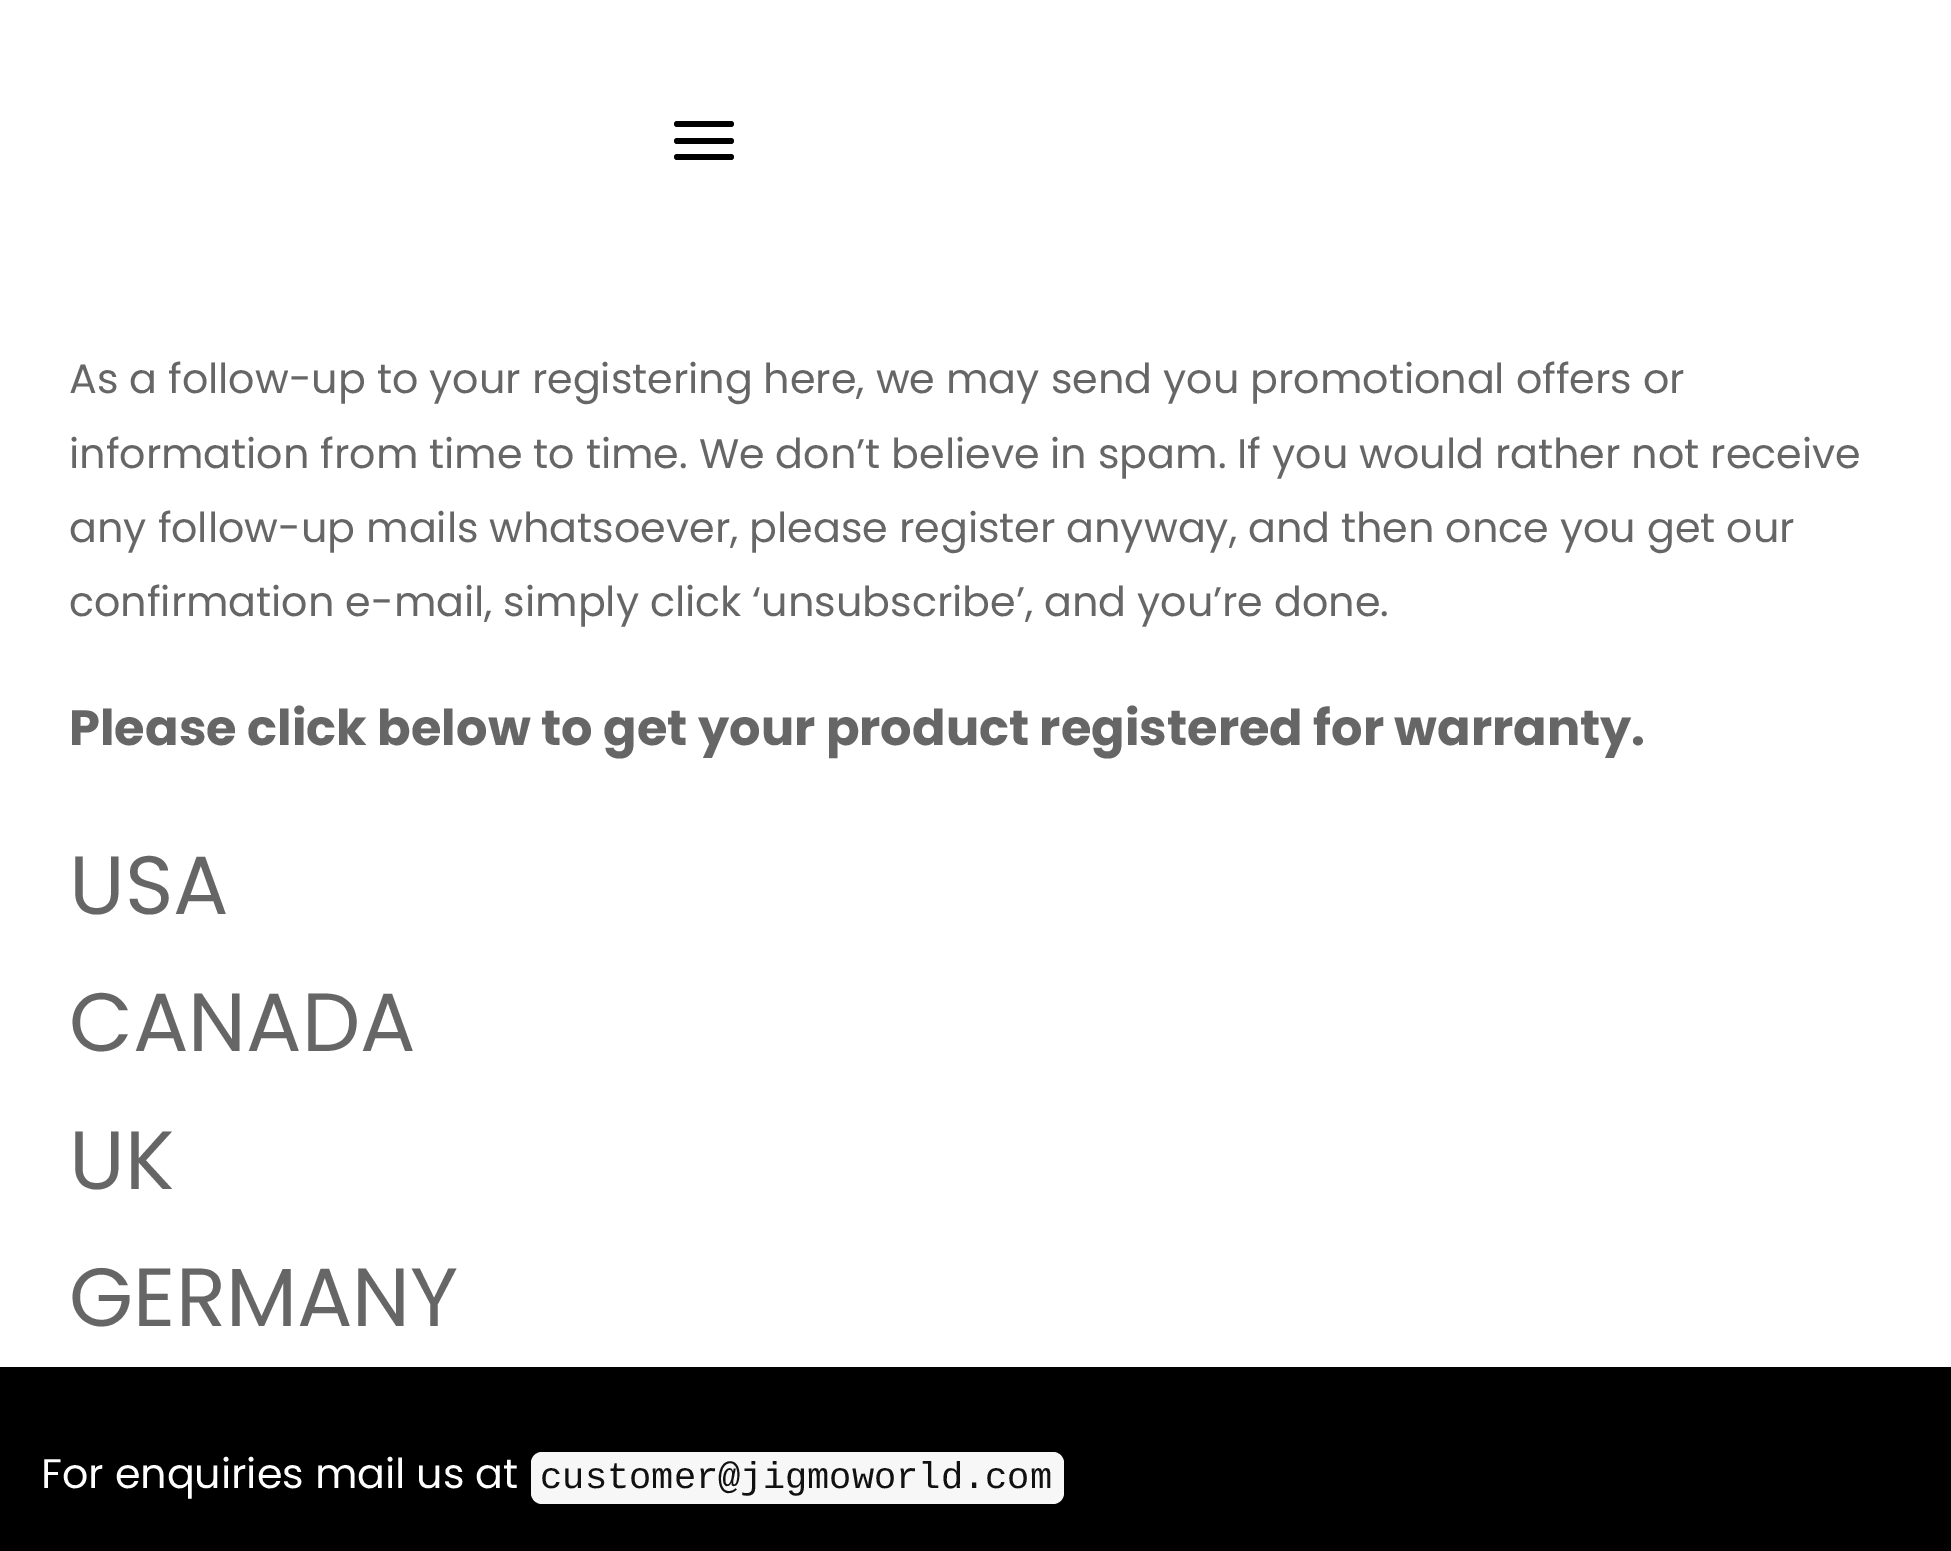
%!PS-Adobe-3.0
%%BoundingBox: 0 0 1951 1551
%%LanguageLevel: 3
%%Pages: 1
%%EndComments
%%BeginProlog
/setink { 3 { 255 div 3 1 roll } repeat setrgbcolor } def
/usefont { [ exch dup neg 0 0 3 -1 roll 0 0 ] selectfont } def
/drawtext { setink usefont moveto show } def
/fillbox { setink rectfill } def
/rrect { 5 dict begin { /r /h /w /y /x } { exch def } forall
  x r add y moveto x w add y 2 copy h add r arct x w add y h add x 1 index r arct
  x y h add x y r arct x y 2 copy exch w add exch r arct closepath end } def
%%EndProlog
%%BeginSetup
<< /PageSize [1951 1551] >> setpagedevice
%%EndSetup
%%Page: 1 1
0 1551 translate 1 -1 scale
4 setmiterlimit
0 0 1951 1551 255 255 255 fillbox
0 0 0 setink
674 121 60 6 3 rrect fill
674 138 60 6 3 rrect fill
674 154 60 6 3 rrect fill
(As a follow-up to your registering here, we may send you promotional offers or) 69 393 /Poppins-Regular 41.25 102 102 102 drawtext
(information from time to time. We don’t believe in spam. If you would rather not receive) 69 468 /Poppins-Regular 41.25 102 102 102 drawtext
(any follow-up mails whatsoever, please register anyway, and then once you get our) 69 542 /Poppins-Regular 41.25 102 102 102 drawtext
(confirmation e-mail, simply click ‘unsubscribe’, and you’re done.) 69 616 /Poppins-Regular 41.25 102 102 102 drawtext
(Please click below to get your product registered for warranty.) 69 745 /Poppins-Bold 49.5 102 102 102 drawtext
(USA) 69 914 /Poppins-Regular 82.5 102 102 102 drawtext
(CANADA) 69 1051 /Poppins-Regular 82.5 102 102 102 drawtext
(UK) 69 1189 /Poppins-Regular 82.5 102 102 102 drawtext
(GERMANY) 69 1326 /Poppins-Regular 82.5 102 102 102 drawtext
0 1367 1951 184 0 0 0 fillbox
(For enquiries mail us at) 41 1488 /Poppins-Regular 41.25 255 255 255 drawtext
247 247 247 setink
531 1452 533 52 11 rrect fill
(customer@jigmoworld.com) 540 1488 /LiberationMono-Regular 37.1 17 17 17 drawtext
showpage
%%EOF
